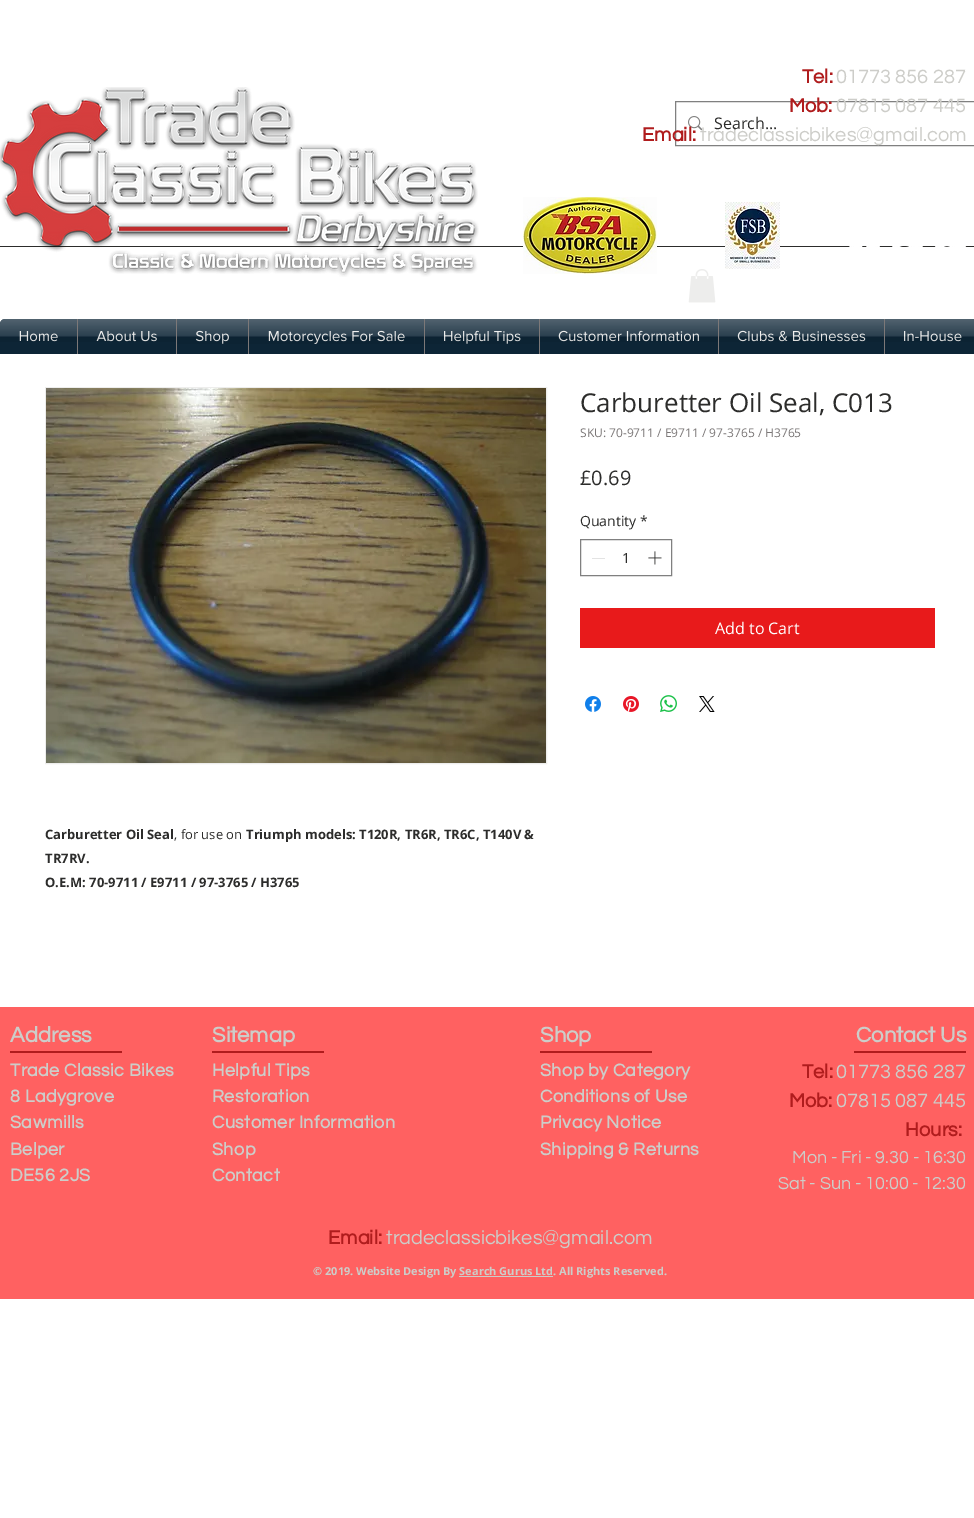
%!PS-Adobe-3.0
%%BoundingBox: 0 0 974 1518
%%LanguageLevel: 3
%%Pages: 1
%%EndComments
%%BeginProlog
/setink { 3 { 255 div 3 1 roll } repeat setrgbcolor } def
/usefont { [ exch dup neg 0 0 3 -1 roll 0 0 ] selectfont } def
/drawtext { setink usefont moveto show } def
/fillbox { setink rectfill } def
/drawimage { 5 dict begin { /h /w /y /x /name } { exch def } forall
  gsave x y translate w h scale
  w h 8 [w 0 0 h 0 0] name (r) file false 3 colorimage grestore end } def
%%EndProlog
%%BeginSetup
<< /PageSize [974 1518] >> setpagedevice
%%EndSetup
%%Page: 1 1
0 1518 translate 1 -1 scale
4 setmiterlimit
0 0 974 1518 255 255 255 fillbox
0 246 974 1 44 44 43 fillbox
(assets/img1.rgb) 0 87 479 190 drawimage
(assets/img2.rgb) 523 197 134 77 drawimage
(Tel:) 802 83 /Questrial-Bold 20 176 28 29 drawtext
(01773 856 287) 836 83 /Questrial-Regular 20 205 205 201 drawtext
128 128 128 setink
675.5 101.5 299 44 rectstroke
(Mob:) 789 112 /Questrial-Bold 20 176 28 29 drawtext
(07815 087 445) 836 112 /Questrial-Regular 20 205 205 201 drawtext
(assets/img17.rgb) 688 116 14 15 drawimage
(Email:) 642 141 /Questrial-Bold 20 176 28 29 drawtext
(tradeclassicbikes@gmail.com) 700 141 /Questrial-Regular 20 205 205 201 drawtext
(assets/img3.rgb) 725 202 55 67 drawimage
(assets/img4.rgb) 849 246 31 1 drawimage
(assets/img5.rgb) 892 246 31 1 drawimage
(assets/img6.rgb) 934 246 33 1 drawimage
(assets/img7.rgb) 688 269 28 34 drawimage
(assets/img8.rgb) 0 319 5 5 drawimage
13 37 54 setink
5 319 moveto 77 319 lineto 77 354 lineto 0 354 lineto 0 324 lineto 0 321 2 319 5 319 curveto closepath fill
(Home) 19 341 /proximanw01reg-Regular 15 237 237 236 drawtext
(assets/img9.rgb) 0 319 77 23 drawimage
78 319 98 35 13 37 54 fillbox
77 319 1 35 124 120 120 fillbox
(About Us) 96 341 /proximanw01reg-Regular 15 237 237 236 drawtext
(assets/img10.rgb) 78 319 98 23 drawimage
177 319 71 35 13 37 54 fillbox
176 319 1 35 124 120 120 fillbox
(Shop) 195 341 /proximanw01reg-Regular 15 237 237 236 drawtext
(assets/img11.rgb) 177 319 71 25 drawimage
249 319 175 35 13 37 54 fillbox
248 319 1 35 124 120 120 fillbox
(Motorcycles For Sale) 268 341 /proximanw01reg-Regular 15 237 237 236 drawtext
(assets/img12.rgb) 249 319 175 25 drawimage
425 319 114 35 13 37 54 fillbox
424 319 1 35 124 120 120 fillbox
(Helpful Tips) 443 341 /proximanw01reg-Regular 15 237 237 236 drawtext
(assets/img13.rgb) 425 319 114 25 drawimage
540 319 178 35 13 37 54 fillbox
539 319 1 35 124 120 120 fillbox
(Customer Information) 558 341 /proximanw01reg-Regular 15 237 237 236 drawtext
(assets/img14.rgb) 540 319 178 23 drawimage
719 319 165 35 13 37 54 fillbox
718 319 1 35 124 120 120 fillbox
(Clubs & Businesses) 737 341 /proximanw01reg-Regular 15 237 237 236 drawtext
(assets/img15.rgb) 719 319 165 23 drawimage
885 319 89 35 13 37 54 fillbox
884 319 1 35 124 120 120 fillbox
(In-House) 903 341 /proximanw01reg-Regular 15 237 237 236 drawtext
(assets/img16.rgb) 885 319 89 23 drawimage
(Search...) 714 129 /OpenSans-Regular 16 44 44 43 drawtext
(Carburetter Oil Seal, C013) 580 412 /OpenSans-Regular 26 44 44 43 drawtext
(SKU: 70-9711 / E9711 / 97-3765 / H3765) 580 437 /OpenSans-Regular 12 124 120 120 drawtext
(£0.69) 580 485 /OpenSans-Regular 20 44 44 43 drawtext
(Quantity) 580 526 /OpenSans-Regular 14 44 44 43 drawtext
(*) 640 526 /OpenSans-Regular 14 44 44 43 drawtext
128 128 128 setink
580.5 539.5 91 36 rectstroke
592 558 13 1 227 227 227 fillbox
(1) 622 563 /OpenSans-Regular 14 44 44 43 drawtext
(assets/img18.rgb) 648 551 14 14 drawimage
580 608 355 40 232 26 27 fillbox
(Add to Cart) 715 634 /OpenSans-Regular 16 255 255 255 drawtext
(assets/img19.rgb) 585 696 16 16 drawimage
(assets/img20.rgb) 623 696 16 16 drawimage
(assets/img21.rgb) 660 695 17 17 drawimage
(assets/img22.rgb) 699 696 16 16 drawimage
237 237 236 setink
45.5 387.5 501 376 rectstroke
(assets/img23.rgb) 46 388 500 375 drawimage
(Carburetter Oil Seal) 45 839 /OpenSans-Bold 13 44 44 43 drawtext
(, for use on) 174 839 /OpenSans-Regular 13 44 44 43 drawtext
(Triumph models: T120R, TR6R, TR6C, T140V &) 246 839 /OpenSans-Bold 13 44 44 43 drawtext
(TR7RV.) 45 863 /OpenSans-Bold 13 44 44 43 drawtext
(O.E.M: 70-9711 / E9711 / 97-3765 / H3765) 45 887 /OpenSans-Bold 13 44 44 43 drawtext
0 1007 974 292 255 97 97 fillbox
(Address) 10 1042 /Questrial-Bold 22 205 205 201 drawtext
(Sitemap) 212 1042 /Questrial-Bold 22 205 205 201 drawtext
(Shop) 540 1042 /Questrial-Bold 22 205 205 201 drawtext
(Contact Us) 856 1042 /Questrial-Bold 22 205 205 201 drawtext
10 1051 112 2 176 28 29 fillbox
212 1051 112 2 176 28 29 fillbox
540 1051 112 2 176 28 29 fillbox
854 1051 112 2 176 28 29 fillbox
/Questrial-Bold 18 usefont
205 205 201 setink
10 1076 moveto 0.4 0 (Trade Classic Bikes) ashow
10 1102 moveto 0.4 0 (8 Ladygrove) ashow
10 1128 moveto 0.4 0 (Sawmills) ashow
10 1155 moveto 0.4 0 (Belper) ashow
10 1181 moveto 0.4 0 (DE56 2JS) ashow
212 1076 moveto 0.4 0 (Helpful Tips) ashow
212 1102 moveto 0.4 0 (Restoration) ashow
212 1128 moveto 0.4 0 (Customer Information) ashow
212 1155 moveto 0.4 0 (Shop) ashow
212 1181 moveto 0.4 0 (Contact) ashow
540 1076 moveto 0.4 0 (Shop by Category) ashow
540 1102 moveto 0.4 0 (Conditions of Use) ashow
540 1128 moveto 0.4 0 (Privacy Notice) ashow
540 1155 moveto 0.4 0 (Shipping & Returns) ashow
(Tel:) 802 1078 /Questrial-Bold 20 176 28 29 drawtext
(01773 856 287) 836 1078 /Questrial-Regular 20 205 205 201 drawtext
(Mob:) 789 1107 /Questrial-Bold 20 176 28 29 drawtext
(07815 087 445) 836 1107 /Questrial-Regular 20 205 205 201 drawtext
(Hours:) 905 1136 /Questrial-Bold 20 176 28 29 drawtext
(Mon - Fri - 9.30 - 16:30) 792 1163 /Questrial-Regular 18 205 205 201 drawtext
(Sat - Sun - 10:00 - 12:30) 778 1189 /Questrial-Regular 18 205 205 201 drawtext
(Email:) 328 1244 /Questrial-Bold 20 176 28 29 drawtext
(tradeclassicbikes@gmail.com) 386 1244 /Questrial-Regular 20 205 205 201 drawtext
(© 2019. Website Design By Search Gurus Ltd. All Rights Reserved.) 313 1275 /OpenSans-Bold 11 205 205 201 drawtext
459 1276 94 1 205 205 201 fillbox
showpage
%%EOF
